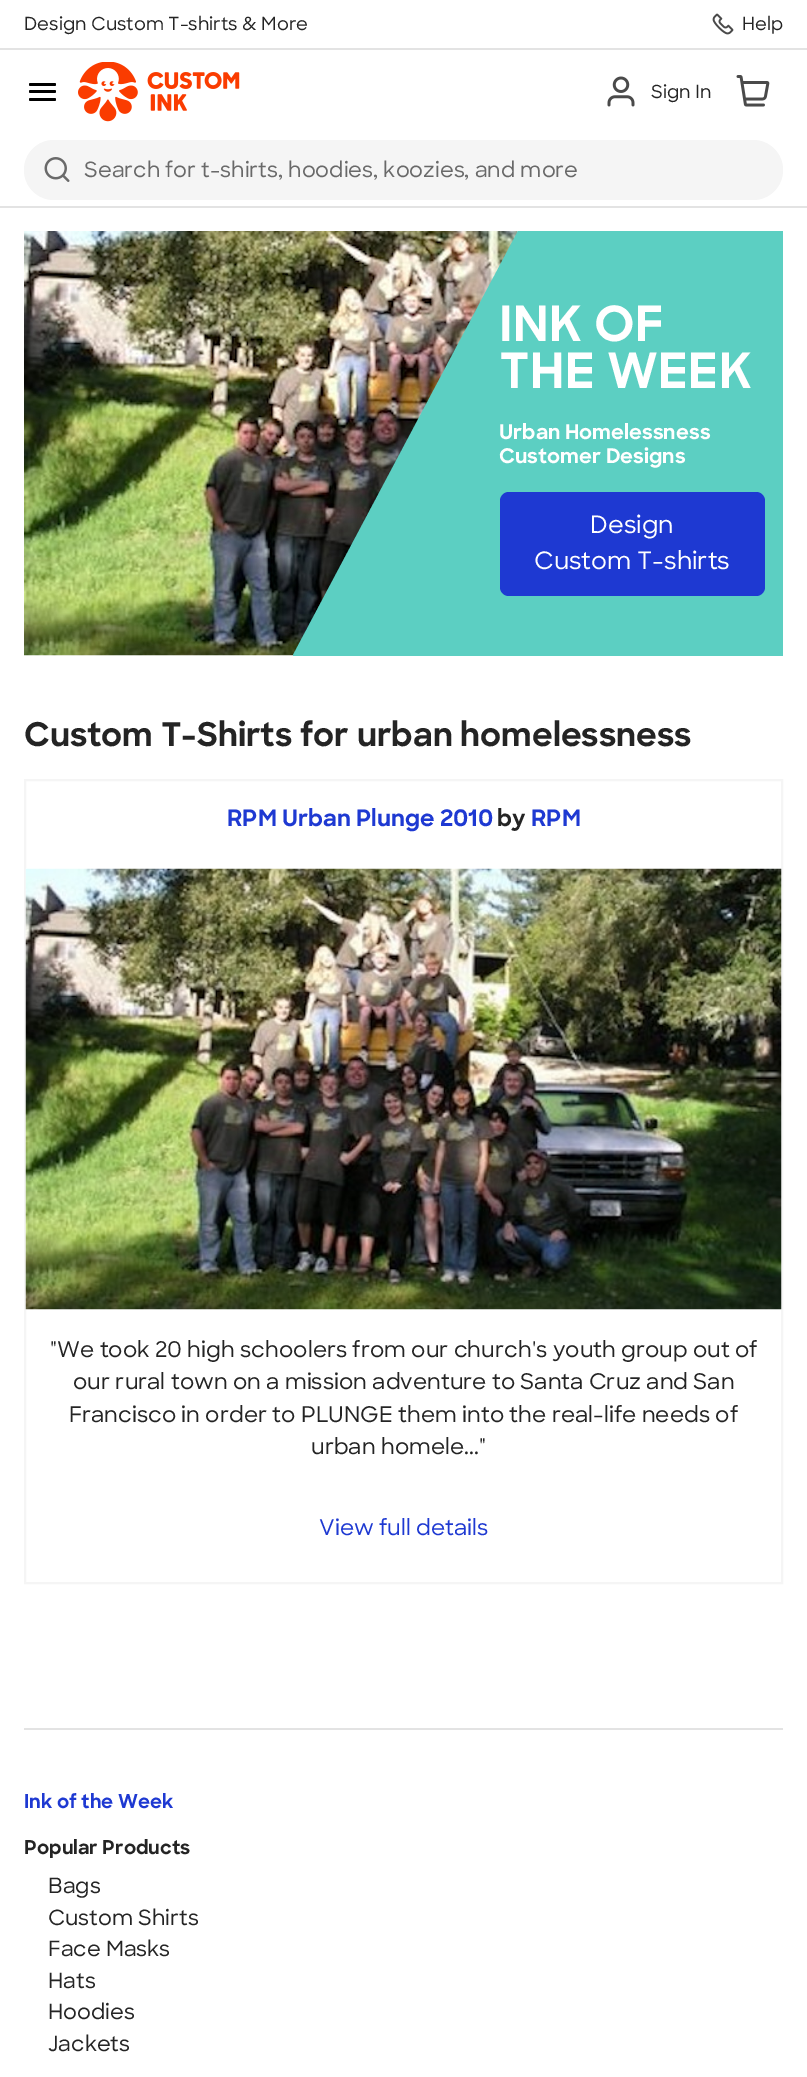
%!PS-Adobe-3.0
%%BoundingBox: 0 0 807 2077
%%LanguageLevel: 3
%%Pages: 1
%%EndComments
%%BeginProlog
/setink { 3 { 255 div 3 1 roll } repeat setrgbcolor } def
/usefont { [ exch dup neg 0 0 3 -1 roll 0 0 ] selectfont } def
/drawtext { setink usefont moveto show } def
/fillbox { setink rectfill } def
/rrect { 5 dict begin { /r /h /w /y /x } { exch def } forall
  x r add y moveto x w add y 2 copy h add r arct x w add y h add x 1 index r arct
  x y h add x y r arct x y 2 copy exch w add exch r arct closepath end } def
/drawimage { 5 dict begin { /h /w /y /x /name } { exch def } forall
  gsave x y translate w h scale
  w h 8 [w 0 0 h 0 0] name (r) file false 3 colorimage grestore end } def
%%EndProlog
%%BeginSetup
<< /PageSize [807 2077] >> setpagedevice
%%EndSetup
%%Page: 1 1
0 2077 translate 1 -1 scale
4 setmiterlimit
0 0 807 2077 255 255 255 fillbox
0 48 807 2 227 227 227 fillbox
(Design Custom T-shirts & More) 24 30 /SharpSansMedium-Medium 18 36 36 36 drawtext
(assets/img1.rgb) 712 13 22 22 drawimage
(Help) 742 30 /SharpSansMedium-Medium 18 36 36 36 drawtext
0 206 807 2 227 227 227 fillbox
0 0 0 setink
29 83 27 3 1.5 rrect fill
29 90 27 3 1.5 rrect fill
29 98 27 3 1.5 rrect fill
(assets/img2.rgb) 78 62 162 60 drawimage
(assets/img3.rgb) 607 76 28 31 drawimage
(Sign In) 651 98 /SharpSansMedium-Medium 18 36 36 36 drawtext
(assets/img4.rgb) 736 75 34 32 drawimage
245 245 245 setink
24 140 759 60 30 rrect fill
(assets/img5.rgb) 44 157 26 25 drawimage
(Search for t-shirts, hoodies, koozies, and more) 84 177 /SharpSansMedium-Medium 21 105 105 105 drawtext
(assets/img6.rgb) 24 231 494 425 drawimage
518 231 265 425 92 207 194 fillbox
518 231 moveto 293 655 lineto 293 656 lineto 518 656 lineto closepath fill
/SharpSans-Bold 48.5 usefont
255 255 255 setink
499 341 moveto 0.5 0 (INK OF) ashow
499 388 moveto 0.5 0 (THE WEEK) ashow
(Urban Homelessness) 499 439 /SharpSans-Bold 20.25 255 255 255 drawtext
(Customer Designs) 499 463 /SharpSans-Bold 20.25 255 255 255 drawtext
30 57 210 setink
500 492 265 104 9 rrect fill
(Design) 590 533 /SharpSansMedium-Medium 24 255 255 255 drawtext
(Custom T-shirts) 534 569 /SharpSansMedium-Medium 24 255 255 255 drawtext
(Custom T-Shirts for urban homelessness) 24 746 /SharpSans-Bold 32.7 36 36 36 drawtext
245 245 245 setink
2 setlinewidth
25 780 757 803 rectstroke
(RPM Urban Plunge 2010) 227 826 /SharpSans-Bold 22.75 30 57 210 drawtext
(by) 497 826 /SharpSans-Bold 22.75 36 36 36 drawtext
(RPM) 531 826 /SharpSans-Bold 22.75 30 57 210 drawtext
(assets/img7.rgb) 25 868 757 442 drawimage
("We took 20 high schoolers from our church's youth group out of) 50 1357 /SharpSansMedium-Medium 21.6 36 36 36 drawtext
(our rural town on a mission adventure to Santa Cruz and San) 73 1389 /SharpSansMedium-Medium 21.6 36 36 36 drawtext
(Francisco in order to PLUNGE them into the real-life needs of) 69 1422 /SharpSansMedium-Medium 21.6 36 36 36 drawtext
(urban homele...") 311 1454 /SharpSansMedium-Medium 21.6 36 36 36 drawtext
(View full details) 319 1535 /SharpSansMedium-Medium 21.6 30 57 210 drawtext
24 1728 759 2 227 227 227 fillbox
(Ink of the Week) 24 1808 /SharpSans-Bold 19 30 57 210 drawtext
(Popular Products) 24 1854 /SharpSans-Bold 19 36 36 36 drawtext
(Bags) 48 1893 /SharpSansMedium-Medium 21 36 36 36 drawtext
(Custom Shirts) 48 1925 /SharpSansMedium-Medium 21 36 36 36 drawtext
(Face Masks) 48 1956 /SharpSansMedium-Medium 21 36 36 36 drawtext
(Hats) 48 1988 /SharpSansMedium-Medium 21 36 36 36 drawtext
(Hoodies) 48 2019 /SharpSansMedium-Medium 21 36 36 36 drawtext
(Jackets) 48 2051 /SharpSansMedium-Medium 21 36 36 36 drawtext
showpage
%%EOF
